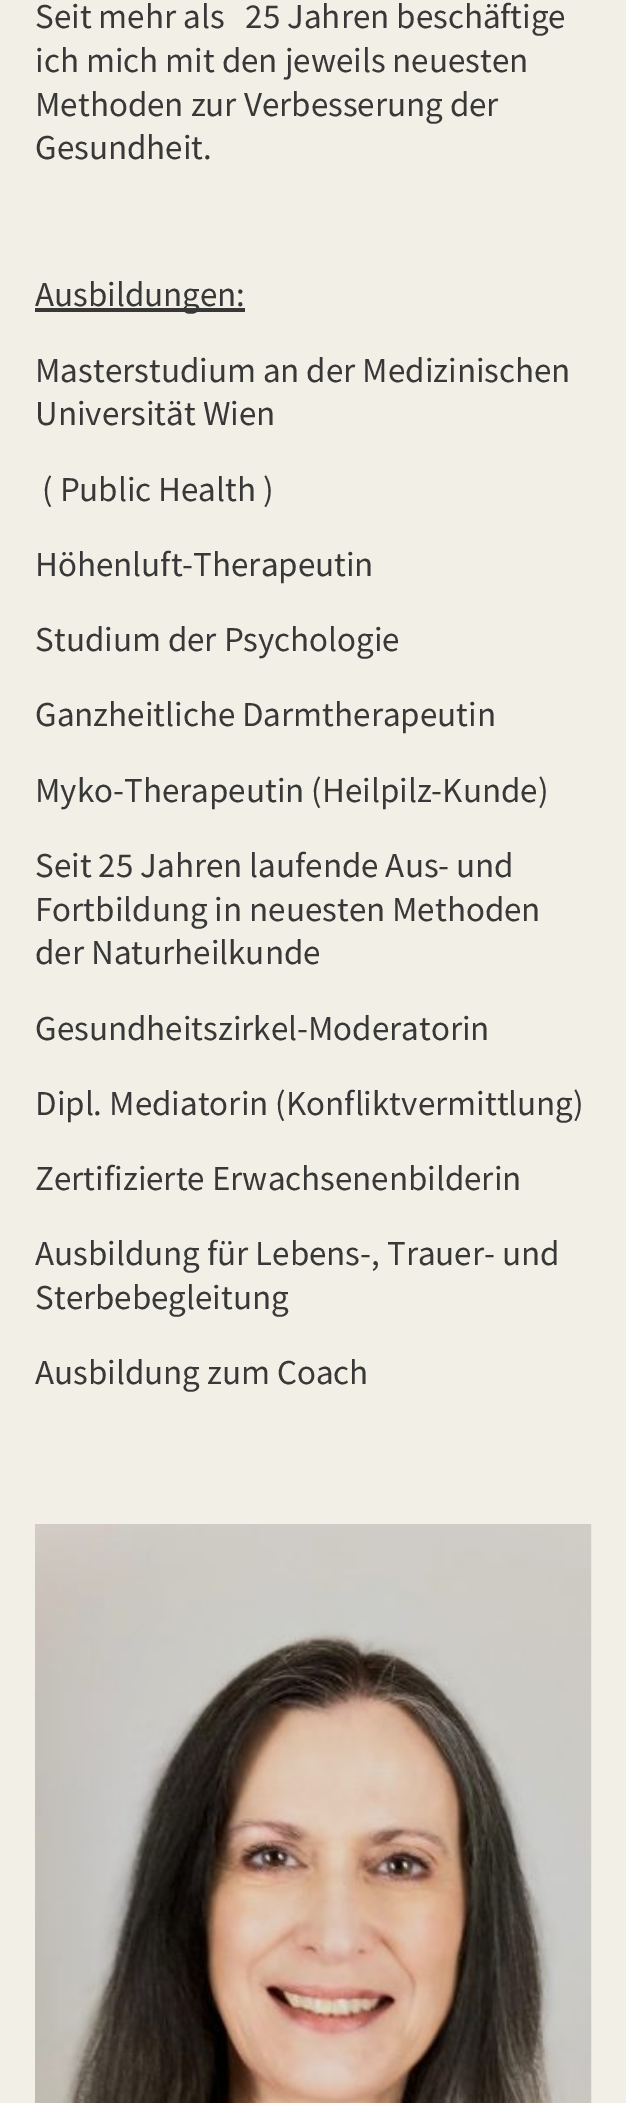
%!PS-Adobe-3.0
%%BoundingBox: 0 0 626 2103
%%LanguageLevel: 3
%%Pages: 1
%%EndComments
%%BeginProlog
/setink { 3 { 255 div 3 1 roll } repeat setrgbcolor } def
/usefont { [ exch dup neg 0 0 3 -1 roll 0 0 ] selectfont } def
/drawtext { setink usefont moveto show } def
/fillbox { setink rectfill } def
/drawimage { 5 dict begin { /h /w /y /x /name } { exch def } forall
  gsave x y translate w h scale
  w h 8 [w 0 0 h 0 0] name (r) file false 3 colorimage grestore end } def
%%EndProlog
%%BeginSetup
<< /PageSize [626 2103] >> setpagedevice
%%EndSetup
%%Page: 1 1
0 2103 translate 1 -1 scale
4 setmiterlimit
0 0 626 2103 242 239 230 fillbox
(Seit mehr als   25 Jahren beschäftige) 35 28 /SourceSansPro-Regular 35 56 56 56 drawtext
(ich mich mit den jeweils neuesten) 35 72 /SourceSansPro-Regular 35 56 56 56 drawtext
(Methoden zur Verbesserung der) 35 116 /SourceSansPro-Regular 35 56 56 56 drawtext
(Gesundheit.) 35 159 /SourceSansPro-Regular 35 56 56 56 drawtext
35 308 210 4 56 56 56 fillbox
(Ausbildungen:) 35 306 /SourceSansPro-Regular 35 56 56 56 drawtext
(Masterstudium an der Medizinischen) 35 382 /SourceSansPro-Regular 35 56 56 56 drawtext
(Universität Wien) 35 425 /SourceSansPro-Regular 35 56 56 56 drawtext
(\( Public Health \)) 42 501 /SourceSansPro-Regular 35 56 56 56 drawtext
(Höhenluft-Therapeutin) 35 576 /SourceSansPro-Regular 35 56 56 56 drawtext
(Studium der Psychologie) 35 651 /SourceSansPro-Regular 35 56 56 56 drawtext
(Ganzheitliche Darmtherapeutin) 35 726 /SourceSansPro-Regular 35 56 56 56 drawtext
(Myko-Therapeutin \(Heilpilz-Kunde\)) 35 802 /SourceSansPro-Regular 35 56 56 56 drawtext
(Seit 25 Jahren laufende Aus- und) 35 877 /SourceSansPro-Regular 35 56 56 56 drawtext
(Fortbildung in neuesten Methoden) 35 921 /SourceSansPro-Regular 35 56 56 56 drawtext
(der Naturheilkunde) 35 964 /SourceSansPro-Regular 35 56 56 56 drawtext
(Gesundheitszirkel-Moderatorin) 35 1040 /SourceSansPro-Regular 35 56 56 56 drawtext
(Dipl. Mediatorin \(Konfliktvermittlung\)) 35 1115 /SourceSansPro-Regular 35 56 56 56 drawtext
(Zertifizierte Erwachsenenbilderin) 35 1190 /SourceSansPro-Regular 35 56 56 56 drawtext
(Ausbildung für Lebens-, Trauer- und) 35 1265 /SourceSansPro-Regular 35 56 56 56 drawtext
(Sterbebegleitung) 35 1309 /SourceSansPro-Regular 35 56 56 56 drawtext
(Ausbildung zum Coach) 35 1384 /SourceSansPro-Regular 35 56 56 56 drawtext
(assets/img1.rgb) 35 1524 557 579 drawimage
showpage
%%EOF
